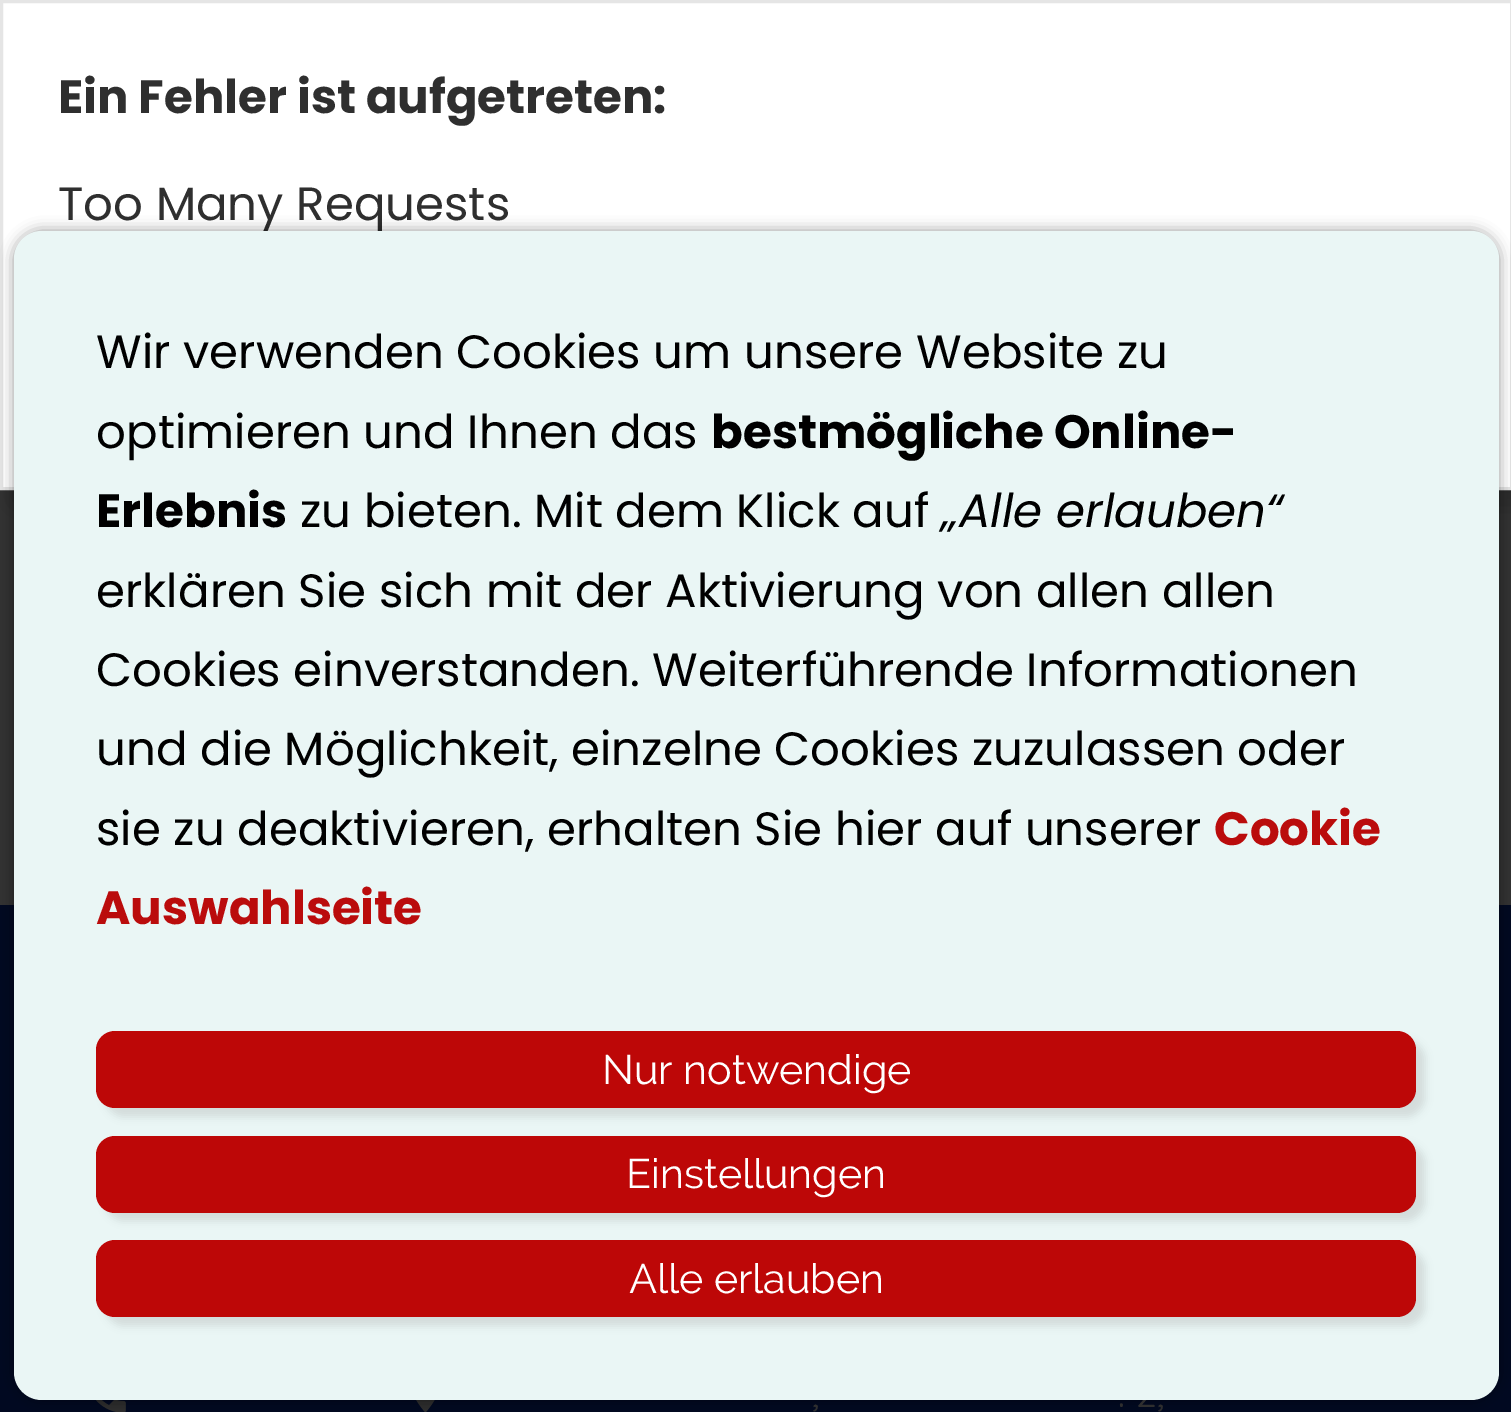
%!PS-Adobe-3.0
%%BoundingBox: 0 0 1511 1412
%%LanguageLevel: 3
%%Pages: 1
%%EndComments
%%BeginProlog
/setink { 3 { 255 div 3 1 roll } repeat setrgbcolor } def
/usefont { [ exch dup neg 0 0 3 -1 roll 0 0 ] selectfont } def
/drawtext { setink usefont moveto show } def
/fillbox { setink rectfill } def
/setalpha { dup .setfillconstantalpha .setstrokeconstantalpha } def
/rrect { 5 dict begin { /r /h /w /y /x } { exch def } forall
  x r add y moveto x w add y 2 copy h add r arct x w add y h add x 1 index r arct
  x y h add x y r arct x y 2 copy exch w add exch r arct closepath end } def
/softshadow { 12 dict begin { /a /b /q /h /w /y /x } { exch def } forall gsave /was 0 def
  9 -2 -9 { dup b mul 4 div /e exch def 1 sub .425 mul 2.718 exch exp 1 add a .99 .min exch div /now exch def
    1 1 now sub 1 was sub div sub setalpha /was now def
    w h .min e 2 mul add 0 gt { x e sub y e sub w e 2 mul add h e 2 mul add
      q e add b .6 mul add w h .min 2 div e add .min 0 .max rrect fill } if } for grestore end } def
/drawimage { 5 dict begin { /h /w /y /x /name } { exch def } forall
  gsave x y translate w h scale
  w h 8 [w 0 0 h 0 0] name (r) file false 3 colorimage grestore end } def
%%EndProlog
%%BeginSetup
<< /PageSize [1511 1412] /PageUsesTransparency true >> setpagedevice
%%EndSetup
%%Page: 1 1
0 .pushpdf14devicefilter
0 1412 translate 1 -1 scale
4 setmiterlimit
0 0 1511 1412 51 51 51 fillbox
0 0 0 setink
14 14 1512 489 0 14 0.2 softshadow
255 255 255 setink
1.5 1.5 moveto 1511.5 1.5 lineto 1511.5 488.5 lineto 1.5 488.5 lineto closepath gsave fill grestore
229 229 229 setink
3 setlinewidth
stroke
(Ein Fehler ist aufgetreten:) 58 113 /Poppins-Bold 46.75 47 47 47 drawtext
(Too Many Requests) 58 220 /Poppins-Regular 46.75 47 47 47 drawtext
0 905 1511 507 1 9 33 fillbox
(assets/img1.rgb) 96 1400 30 12 drawimage
(assets/img2.rgb) 416 1400 19 12 drawimage
0 0 0 setink
14 231 1485 1169 28 7 0.4 softshadow
(. 2,) 1118 1407 /Quicksand-Light 38 47 47 47 drawtext
234 246 245 setink
14 231 1485 1169 28 rrect fill
(Wir verwenden Cookies um unsere Website zu) 96 368 /Poppins-Regular 46.75 0 0 0 drawtext
(optimieren und Ihnen das) 96 448 /Poppins-Regular 46.75 0 0 0 drawtext
(bestmögliche Online-) 711 448 /Poppins-Bold 46.75 0 0 0 drawtext
(Erlebnis) 96 527 /Poppins-Bold 46.75 0 0 0 drawtext
(zu bieten. Mit dem Klick auf) 300 527 /Poppins-Regular 46.75 0 0 0 drawtext
(„Alle erlauben“) 942 527 /Poppins-Italic 46.75 0 0 0 drawtext
(erklären Sie sich mit der Aktivierung von allen allen) 96 607 /Poppins-Regular 46.75 0 0 0 drawtext
(Cookies einverstanden. Weiterführende Informationen) 96 686 /Poppins-Regular 46.75 0 0 0 drawtext
(und die Möglichkeit, einzelne Cookies zuzulassen oder) 96 765 /Poppins-Regular 46.75 0 0 0 drawtext
(sie zu deaktivieren, erhalten Sie hier auf unserer) 96 845 /Poppins-Regular 46.75 0 0 0 drawtext
(Cookie) 1214 845 /Poppins-Bold 46.75 186 12 12 drawtext
(Auswahlseite) 96 924 /Poppins-Bold 46.75 186 12 12 drawtext
0 0 0 setink
105 1040 1320 77 19 4 0.1 softshadow
189 7 7 setink
96 1031 1320 77 19 rrect fill
(Nur notwendige) 602 1084 /Raleway-Regular 41.25 255 255 255 drawtext
0 0 0 setink
105 1144 1320 77 19 4 0.1 softshadow
189 7 7 setink
96 1136 1320 77 19 rrect fill
(Einstellungen) 626 1188 /Raleway-Regular 41.25 255 255 255 drawtext
0 0 0 setink
105 1249 1320 77 19 4 0.1 softshadow
189 7 7 setink
96 1240 1320 77 19 rrect fill
(Alle erlauben) 629 1293 /Raleway-Regular 41.25 255 255 255 drawtext
(,) 812 1407 /Quicksand-Light 38 47 47 47 drawtext
.poppdf14devicefilter showpage
%%EOF
